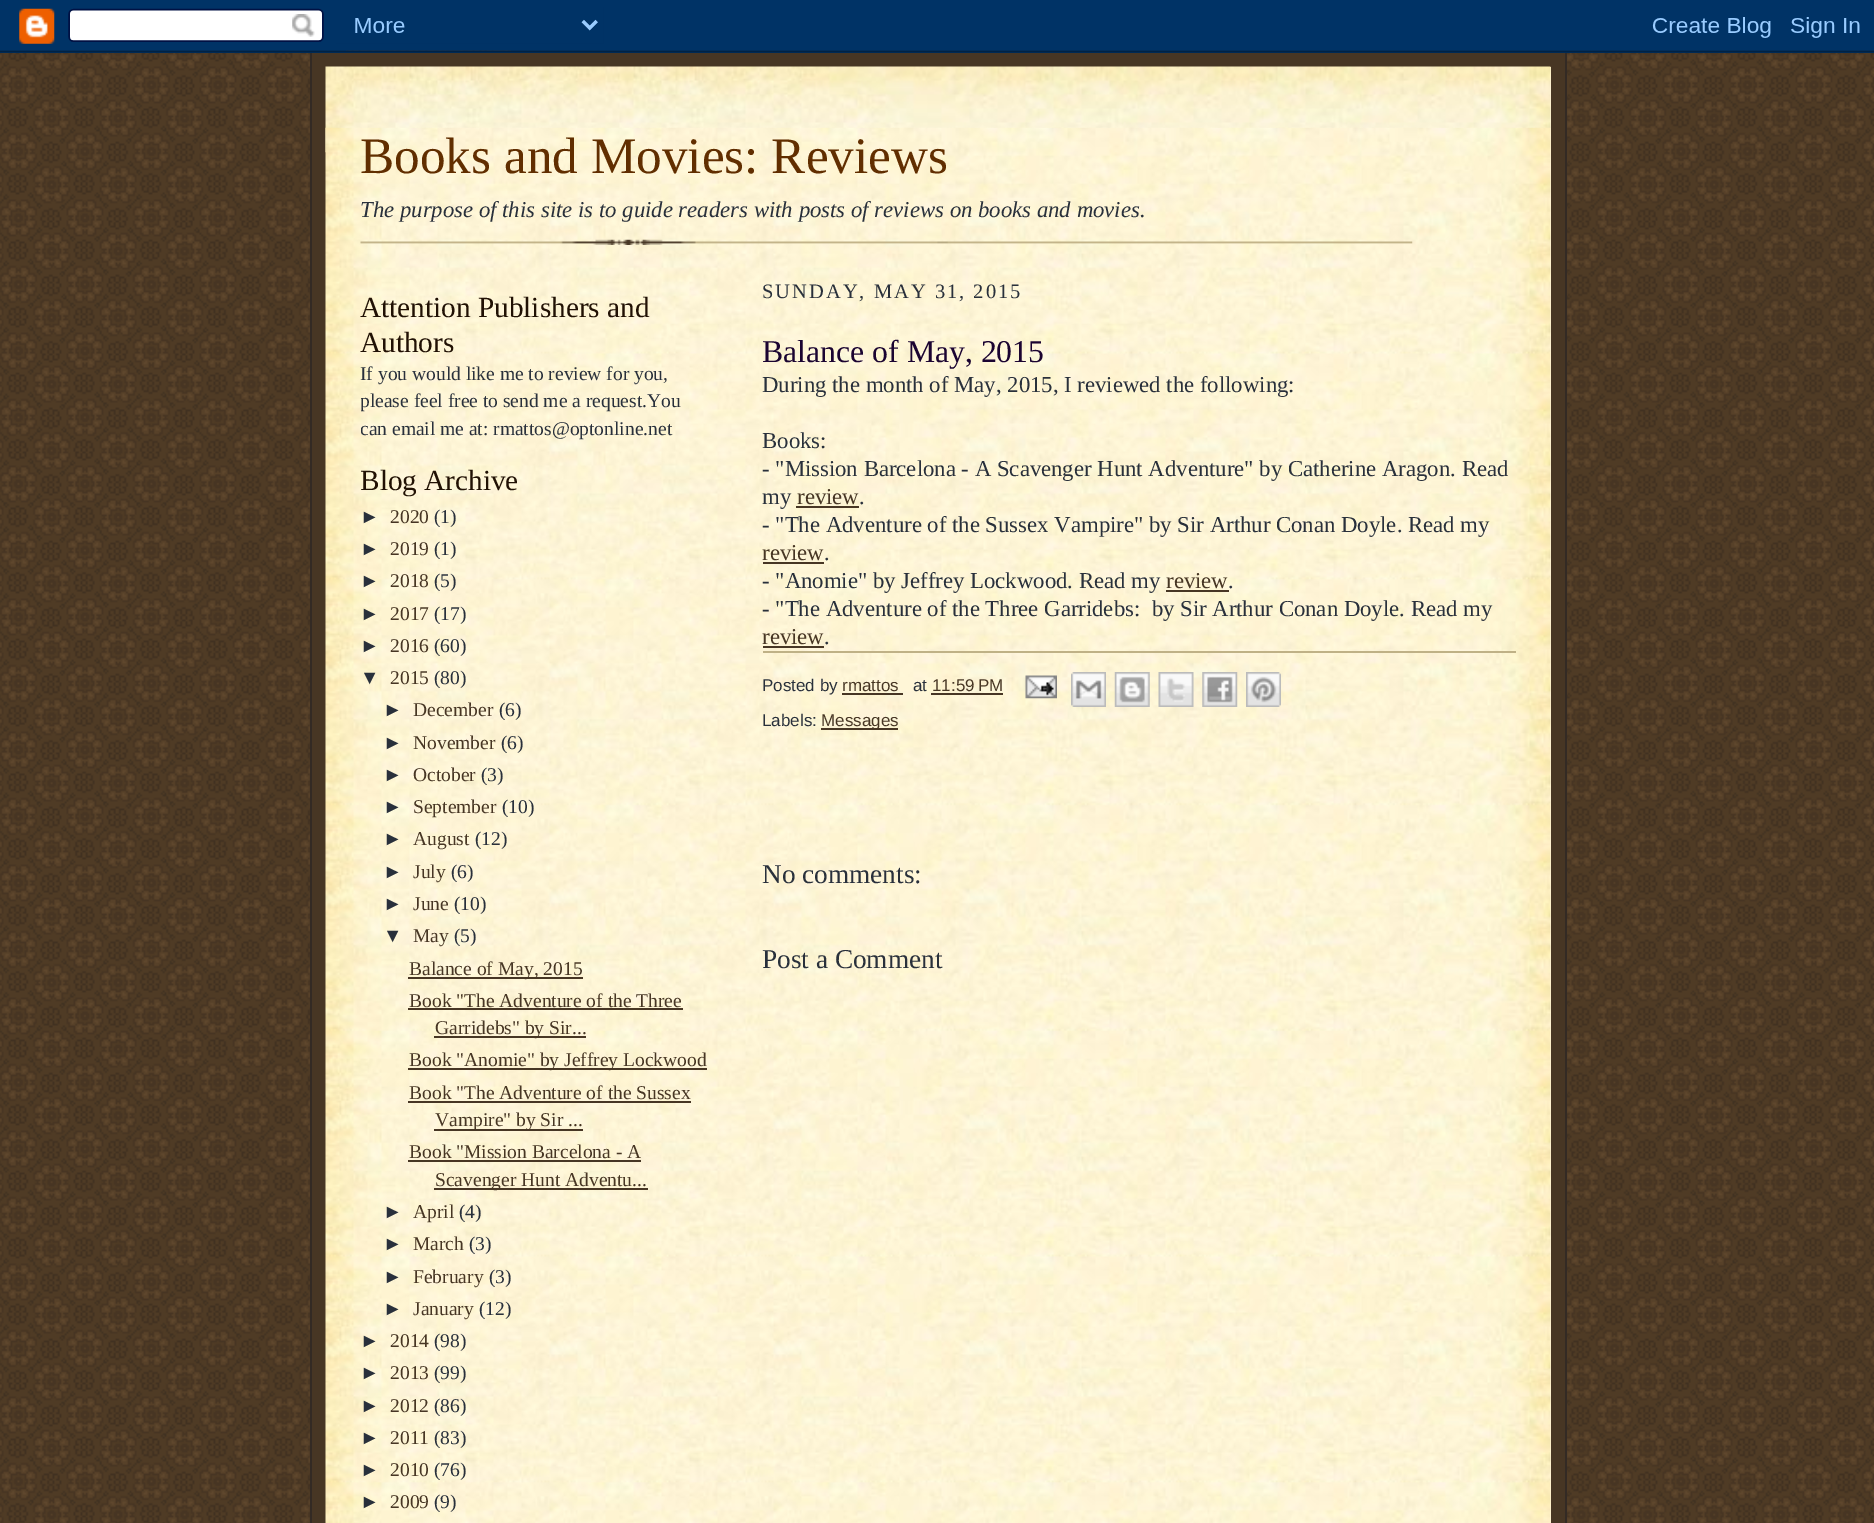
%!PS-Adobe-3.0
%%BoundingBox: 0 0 1874 1523
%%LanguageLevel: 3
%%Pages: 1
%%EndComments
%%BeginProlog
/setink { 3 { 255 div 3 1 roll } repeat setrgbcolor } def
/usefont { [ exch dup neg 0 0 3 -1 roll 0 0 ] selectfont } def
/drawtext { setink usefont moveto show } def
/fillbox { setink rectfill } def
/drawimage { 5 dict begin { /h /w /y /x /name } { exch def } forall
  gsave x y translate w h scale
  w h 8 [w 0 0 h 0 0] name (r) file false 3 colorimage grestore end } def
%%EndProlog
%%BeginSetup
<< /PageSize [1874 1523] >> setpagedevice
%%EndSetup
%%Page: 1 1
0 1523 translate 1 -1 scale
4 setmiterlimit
0 0 1874 1523 255 255 255 fillbox
(assets/img1.rgb) 0 50 1874 1473 drawimage
(assets/img2.rgb) 0 0 1874 53 drawimage
312 53 1253 1470 71 54 36 fillbox
1565 53 2 1470 51 42 36 fillbox
310 53 2 1470 51 42 36 fillbox
1550 67 1 61 255 243 219 fillbox
(assets/img3.rgb) 325 66 1226 87 drawimage
1550 128 1 1395 255 243 219 fillbox
(assets/img4.rgb) 325 127 1226 1396 drawimage
(assets/img5.rgb) 360 239 1053 6 drawimage
(Books and Movies: Reviews) 360 173 /LiberationSerif-Regular 51.25 97 46 0 drawtext
(The purpose of this site is to guide readers with posts of reviews on books and movies.) 360 217 /LiberationSerif-Italic 22.75 41 48 59 drawtext
(Attention Publishers and) 360 317 /LiberationSerif-Regular 29.25 33 17 4 drawtext
(Authors) 360 352 /LiberationSerif-Regular 29.25 33 17 4 drawtext
(If you would like me to review for you,) 360 380 /LiberationSerif-Regular 19.5 41 48 59 drawtext
gsave
361 266 350 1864 rectclip
(please feel free to send me a request.You) 360 407 /LiberationSerif-Regular 19.5 41 48 59 drawtext
(can email me at: rmattos@optonline.net) 360 435 /LiberationSerif-Regular 19.5 41 48 59 drawtext
(Blog Archive) 360 490 /LiberationSerif-Regular 29.25 33 17 4 drawtext
grestore
(►) 360 523 /LiberationSans-Regular 19.5 41 48 59 drawtext
(2020) 390 523 /LiberationSerif-Regular 19.5 71 54 36 drawtext
(\(1\)) 434 523 /LiberationSerif-Regular 19.5 41 48 59 drawtext
(►) 360 555 /LiberationSans-Regular 19.5 41 48 59 drawtext
(2019) 390 555 /LiberationSerif-Regular 19.5 71 54 36 drawtext
(\(1\)) 434 555 /LiberationSerif-Regular 19.5 41 48 59 drawtext
(►) 360 587 /LiberationSans-Regular 19.5 41 48 59 drawtext
(2018) 390 587 /LiberationSerif-Regular 19.5 71 54 36 drawtext
(\(5\)) 434 587 /LiberationSerif-Regular 19.5 41 48 59 drawtext
(►) 360 620 /LiberationSans-Regular 19.5 41 48 59 drawtext
(2017) 390 620 /LiberationSerif-Regular 19.5 71 54 36 drawtext
(\(17\)) 434 620 /LiberationSerif-Regular 19.5 41 48 59 drawtext
(►) 360 652 /LiberationSans-Regular 19.5 41 48 59 drawtext
(2016) 390 652 /LiberationSerif-Regular 19.5 71 54 36 drawtext
(\(60\)) 434 652 /LiberationSerif-Regular 19.5 41 48 59 drawtext
(▼) 360 684 /LiberationSans-Regular 19.5 41 48 59 drawtext
(2015) 390 684 /LiberationSerif-Regular 19.5 71 54 36 drawtext
(\(80\)) 434 684 /LiberationSerif-Regular 19.5 41 48 59 drawtext
(►) 383 716 /LiberationSans-Regular 19.5 41 48 59 drawtext
(December) 413 716 /LiberationSerif-Regular 19.5 71 54 36 drawtext
(\(6\)) 499 716 /LiberationSerif-Regular 19.5 41 48 59 drawtext
(►) 383 749 /LiberationSans-Regular 19.5 41 48 59 drawtext
(November) 413 749 /LiberationSerif-Regular 19.5 71 54 36 drawtext
(\(6\)) 501 749 /LiberationSerif-Regular 19.5 41 48 59 drawtext
(►) 383 781 /LiberationSans-Regular 19.5 41 48 59 drawtext
(October) 413 781 /LiberationSerif-Regular 19.5 71 54 36 drawtext
(\(3\)) 481 781 /LiberationSerif-Regular 19.5 41 48 59 drawtext
(►) 383 813 /LiberationSans-Regular 19.5 41 48 59 drawtext
(September) 413 813 /LiberationSerif-Regular 19.5 71 54 36 drawtext
(\(10\)) 502 813 /LiberationSerif-Regular 19.5 41 48 59 drawtext
(►) 383 845 /LiberationSans-Regular 19.5 41 48 59 drawtext
(August) 413 845 /LiberationSerif-Regular 19.5 71 54 36 drawtext
(\(12\)) 475 845 /LiberationSerif-Regular 19.5 41 48 59 drawtext
(►) 383 878 /LiberationSans-Regular 19.5 41 48 59 drawtext
(July) 413 878 /LiberationSerif-Regular 19.5 71 54 36 drawtext
(\(6\)) 451 878 /LiberationSerif-Regular 19.5 41 48 59 drawtext
(►) 383 910 /LiberationSans-Regular 19.5 41 48 59 drawtext
(June) 413 910 /LiberationSerif-Regular 19.5 71 54 36 drawtext
(\(10\)) 454 910 /LiberationSerif-Regular 19.5 41 48 59 drawtext
(▼) 383 942 /LiberationSans-Regular 19.5 41 48 59 drawtext
(May) 413 942 /LiberationSerif-Regular 19.5 71 54 36 drawtext
(\(5\)) 454 942 /LiberationSerif-Regular 19.5 41 48 59 drawtext
408 977 175 2 71 54 36 fillbox
(Balance of May, 2015) 409 975 /LiberationSerif-Regular 19.5 71 54 36 drawtext
(Book "The Adventure of the Three) 409 1007 /LiberationSerif-Regular 19.5 71 54 36 drawtext
408 1008 275 2 71 54 36 fillbox
434 1036 152 2 71 54 36 fillbox
(Garridebs" by Sir...) 435 1034 /LiberationSerif-Regular 19.5 71 54 36 drawtext
408 1068 299 2 71 54 36 fillbox
(Book "Anomie" by Jeffrey Lockwood) 409 1066 /LiberationSerif-Regular 19.5 71 54 36 drawtext
(Book "The Adventure of the Sussex) 409 1099 /LiberationSerif-Regular 19.5 71 54 36 drawtext
408 1101 283 2 71 54 36 fillbox
434 1129 149 2 71 54 36 fillbox
(Vampire" by Sir ...) 435 1126 /LiberationSerif-Regular 19.5 71 54 36 drawtext
(Book "Mission Barcelona - A) 409 1158 /LiberationSerif-Regular 19.5 71 54 36 drawtext
408 1160 233 2 71 54 36 fillbox
434 1188 214 2 71 54 36 fillbox
(Scavenger Hunt Adventu...) 435 1186 /LiberationSerif-Regular 19.5 71 54 36 drawtext
(►) 383 1218 /LiberationSans-Regular 19.5 41 48 59 drawtext
(April) 413 1218 /LiberationSerif-Regular 19.5 71 54 36 drawtext
(\(4\)) 459 1218 /LiberationSerif-Regular 19.5 41 48 59 drawtext
(►) 383 1250 /LiberationSans-Regular 19.5 41 48 59 drawtext
(March) 413 1250 /LiberationSerif-Regular 19.5 71 54 36 drawtext
(\(3\)) 469 1250 /LiberationSerif-Regular 19.5 41 48 59 drawtext
(►) 383 1283 /LiberationSans-Regular 19.5 41 48 59 drawtext
(February) 413 1283 /LiberationSerif-Regular 19.5 71 54 36 drawtext
(\(3\)) 489 1283 /LiberationSerif-Regular 19.5 41 48 59 drawtext
(►) 383 1315 /LiberationSans-Regular 19.5 41 48 59 drawtext
(January) 413 1315 /LiberationSerif-Regular 19.5 71 54 36 drawtext
(\(12\)) 479 1315 /LiberationSerif-Regular 19.5 41 48 59 drawtext
(►) 360 1347 /LiberationSans-Regular 19.5 41 48 59 drawtext
(2014) 390 1347 /LiberationSerif-Regular 19.5 71 54 36 drawtext
(\(98\)) 434 1347 /LiberationSerif-Regular 19.5 41 48 59 drawtext
(►) 360 1379 /LiberationSans-Regular 19.5 41 48 59 drawtext
(2013) 390 1379 /LiberationSerif-Regular 19.5 71 54 36 drawtext
(\(99\)) 434 1379 /LiberationSerif-Regular 19.5 41 48 59 drawtext
(►) 360 1412 /LiberationSans-Regular 19.5 41 48 59 drawtext
(2012) 390 1412 /LiberationSerif-Regular 19.5 71 54 36 drawtext
(\(86\)) 434 1412 /LiberationSerif-Regular 19.5 41 48 59 drawtext
(►) 360 1444 /LiberationSans-Regular 19.5 41 48 59 drawtext
(2011) 390 1444 /LiberationSerif-Regular 19.5 71 54 36 drawtext
(\(83\)) 434 1444 /LiberationSerif-Regular 19.5 41 48 59 drawtext
(►) 360 1476 /LiberationSans-Regular 19.5 41 48 59 drawtext
(2010) 390 1476 /LiberationSerif-Regular 19.5 71 54 36 drawtext
(\(76\)) 434 1476 /LiberationSerif-Regular 19.5 41 48 59 drawtext
(►) 360 1508 /LiberationSans-Regular 19.5 41 48 59 drawtext
(2009) 390 1508 /LiberationSerif-Regular 19.5 71 54 36 drawtext
(\(9\)) 434 1508 /LiberationSerif-Regular 19.5 41 48 59 drawtext
/LiberationSerif-Regular 20.5 usefont
762 298 moveto 2 0 (SUNDAY, MAY 31, 2015) ashow
(Balance of May, 2015) 762 362 /LiberationSerif-Regular 31.75 27 4 49 drawtext
(During the month of May, 2015, I reviewed the following:) 762 392 /LiberationSerif-Regular 22.75 41 48 59 drawtext
(Books:) 762 448 /LiberationSerif-Regular 22.75 41 48 59 drawtext
(- "Mission Barcelona - A Scavenger Hunt Adventure" by Catherine Aragon. Read) 762 476 /LiberationSerif-Regular 22.75 41 48 59 drawtext
(my) 762 504 /LiberationSerif-Regular 22.75 41 48 59 drawtext
(review) 797 504 /LiberationSerif-Regular 22.75 71 54 36 drawtext
796 506 63 2 71 54 36 fillbox
(.) 859 504 /LiberationSerif-Regular 22.75 41 48 59 drawtext
(- "The Adventure of the Sussex Vampire" by Sir Arthur Conan Doyle. Read my) 762 532 /LiberationSerif-Regular 22.75 41 48 59 drawtext
(review) 762 560 /LiberationSerif-Regular 22.75 71 54 36 drawtext
763 562 61 2 71 54 36 fillbox
(.) 824 560 /LiberationSerif-Regular 22.75 41 48 59 drawtext
(- "Anomie" by Jeffrey Lockwood. Read my) 762 588 /LiberationSerif-Regular 22.75 41 48 59 drawtext
(review) 1166 588 /LiberationSerif-Regular 22.75 71 54 36 drawtext
1166 590 63 2 71 54 36 fillbox
(.) 1228 588 /LiberationSerif-Regular 22.75 41 48 59 drawtext
(- "The Adventure of the Three Garridebs:  by Sir Arthur Conan Doyle. Read my) 762 616 /LiberationSerif-Regular 22.75 41 48 59 drawtext
(review) 762 644 /LiberationSerif-Regular 22.75 71 54 36 drawtext
763 646 61 2 71 54 36 fillbox
(.) 824 644 /LiberationSerif-Regular 22.75 41 48 59 drawtext
763 651 753 2 191 177 134 fillbox
(Posted by) 762 691 /LiberationSans-Regular 17 41 48 59 drawtext
(rmattos) 842 691 /LiberationSans-Regular 17 71 54 36 drawtext
842 693 61 2 71 54 36 fillbox
(at) 913 691 /LiberationSans-Regular 17 41 48 59 drawtext
(11:59 PM) 932 691 /LiberationSans-Regular 17 71 54 36 drawtext
931 693 72 2 71 54 36 fillbox
(assets/img6.rgb) 1025 675 32 24 drawimage
(assets/img7.rgb) 1071 672 35 35 drawimage
(assets/img8.rgb) 1114 672 36 35 drawimage
(assets/img9.rgb) 1158 672 36 35 drawimage
(assets/img10.rgb) 1202 672 36 35 drawimage
(assets/img11.rgb) 1246 672 35 35 drawimage
(Labels:) 762 726 /LiberationSans-Regular 17 41 48 59 drawtext
821 728 77 2 71 54 36 fillbox
(Messages) 821 726 /LiberationSans-Regular 17 71 54 36 drawtext
(No comments:) 762 883 /LiberationSerif-Regular 27.25 41 48 59 drawtext
(Post a Comment) 762 968 /LiberationSerif-Regular 27.25 41 48 59 drawtext
showpage
%%EOF
